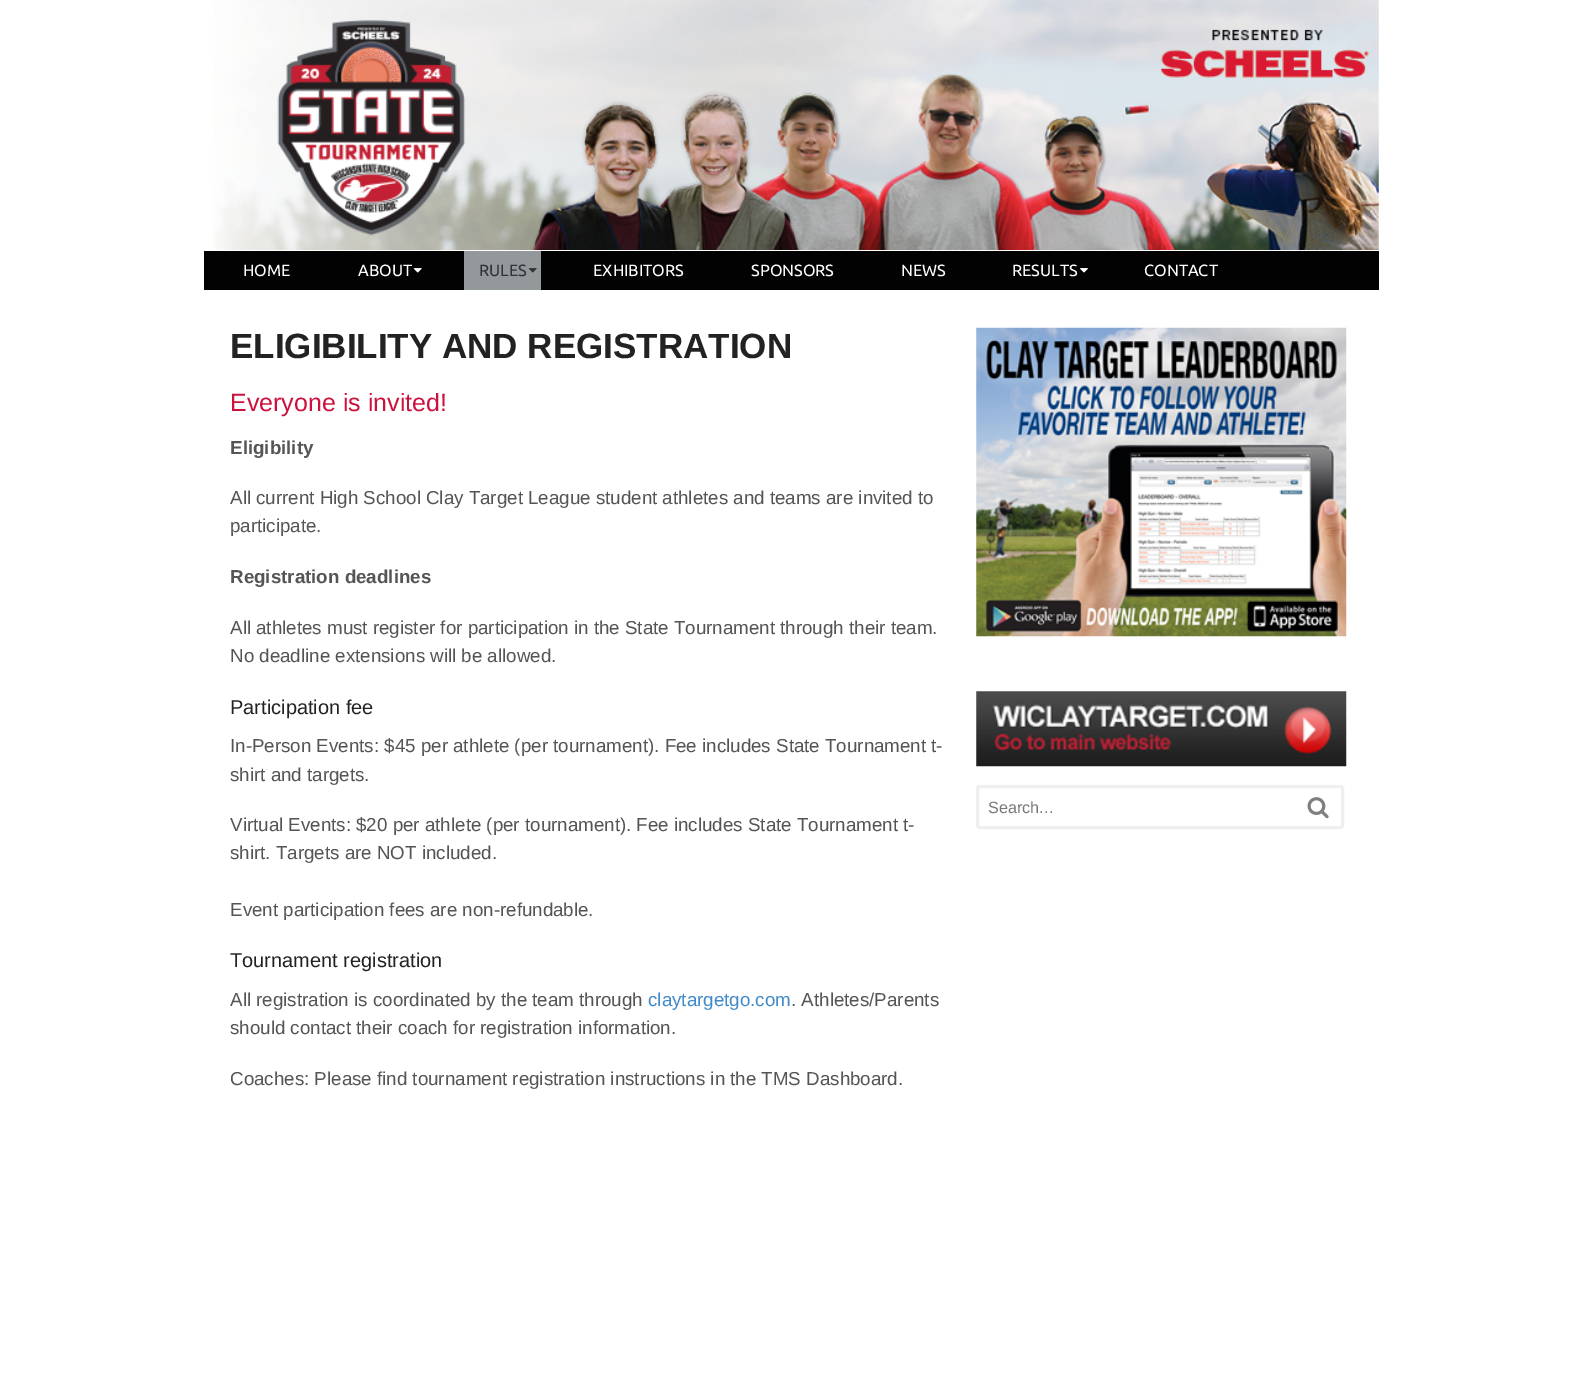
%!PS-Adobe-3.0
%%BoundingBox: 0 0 1582 1398
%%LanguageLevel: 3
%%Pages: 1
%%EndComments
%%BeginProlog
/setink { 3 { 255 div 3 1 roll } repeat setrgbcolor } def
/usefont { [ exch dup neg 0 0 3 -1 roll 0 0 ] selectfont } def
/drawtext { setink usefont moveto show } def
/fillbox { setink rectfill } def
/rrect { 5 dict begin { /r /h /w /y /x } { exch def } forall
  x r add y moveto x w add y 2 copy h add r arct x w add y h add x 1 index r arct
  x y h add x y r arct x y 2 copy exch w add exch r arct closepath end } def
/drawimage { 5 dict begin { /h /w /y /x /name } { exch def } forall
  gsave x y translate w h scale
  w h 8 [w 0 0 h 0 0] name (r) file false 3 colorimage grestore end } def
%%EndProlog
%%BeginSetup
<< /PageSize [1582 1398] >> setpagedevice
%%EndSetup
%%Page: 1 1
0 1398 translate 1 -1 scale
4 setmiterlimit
0 0 1582 1398 255 255 255 fillbox
(assets/img1.rgb) 212 0 1167 250 drawimage
(assets/img2.rgb) 277 19 189 217 drawimage
204 251 1175 39 2 2 2 fillbox
(HOME) 243 276 /Ubuntu-Regular 16.25 255 255 255 drawtext
(ABOUT) 358 276 /Ubuntu-Regular 16.25 255 255 255 drawtext
(assets/img3.rgb) 413 268 9 5 drawimage
464 251 77 39 147 152 155 fillbox
(RULES) 479 276 /Ubuntu-Regular 16.25 51 50 56 drawtext
(assets/img4.rgb) 528 268 9 5 drawimage
(EXHIBITORS) 593 276 /Ubuntu-Regular 16.25 255 255 255 drawtext
(SPONSORS) 751 276 /Ubuntu-Regular 16.25 255 255 255 drawtext
(NEWS) 901 276 /Ubuntu-Regular 16.25 255 255 255 drawtext
(RESULTS) 1012 276 /Ubuntu-Regular 16.25 255 255 255 drawtext
(assets/img5.rgb) 1080 268 8 5 drawimage
(CONTACT) 1144 276 /Ubuntu-Regular 16.25 255 255 255 drawtext
(ELIGIBILITY AND REGISTRATION) 230 358 /LiberationSans-Bold 35 34 34 34 drawtext
(Everyone is invited!) 230 411 /LiberationSans-Regular 25 205 17 61 drawtext
(Eligibility) 230 454 /LiberationSans-Bold 18.75 85 85 85 drawtext
(All current High School Clay Target League student athletes and teams are invited to) 230 504 /LiberationSans-Regular 18.75 85 85 85 drawtext
(participate.) 230 532 /LiberationSans-Regular 18.75 85 85 85 drawtext
(Registration deadlines) 230 583 /LiberationSans-Bold 18.75 85 85 85 drawtext
(All athletes must register for participation in the State Tournament through their team.) 230 634 /LiberationSans-Regular 18.75 85 85 85 drawtext
(No deadline extensions will be allowed.) 230 662 /LiberationSans-Regular 18.75 85 85 85 drawtext
(Participation fee) 230 714 /LiberationSans-Regular 20 34 34 34 drawtext
(In-Person Events: $45 per athlete \(per tournament\). Fee includes State Tournament t-) 230 752 /LiberationSans-Regular 18.75 85 85 85 drawtext
(shirt and targets.) 230 781 /LiberationSans-Regular 18.75 85 85 85 drawtext
(Virtual Events: $20 per athlete \(per tournament\). Fee includes State Tournament t-) 230 831 /LiberationSans-Regular 18.75 85 85 85 drawtext
(shirt. Targets are NOT included.) 230 859 /LiberationSans-Regular 18.75 85 85 85 drawtext
(Event participation fees are non-refundable.) 230 916 /LiberationSans-Regular 18.75 85 85 85 drawtext
(Tournament registration) 230 967 /LiberationSans-Regular 20 34 34 34 drawtext
(All registration is coordinated by the team through) 230 1006 /LiberationSans-Regular 18.75 85 85 85 drawtext
(claytargetgo.com) 648 1006 /LiberationSans-Regular 18.75 66 139 202 drawtext
(. Athletes/Parents) 791 1006 /LiberationSans-Regular 18.75 85 85 85 drawtext
(should contact their coach for registration information.) 230 1034 /LiberationSans-Regular 18.75 85 85 85 drawtext
(Coaches: Please find tournament registration instructions in the TMS Dashboard.) 230 1085 /LiberationSans-Regular 18.75 85 85 85 drawtext
(assets/img6.rgb) 976 327 371 310 drawimage
(assets/img7.rgb) 976 691 371 76 drawimage
239 239 239 setink
3 setlinewidth
977.5 786.5 365 41 2.5 rrect stroke
(Search...) 988 813 /LiberationSans-Regular 16.25 119 119 119 drawtext
(assets/img8.rgb) 1307 797 22 22 drawimage
showpage
%%EOF
